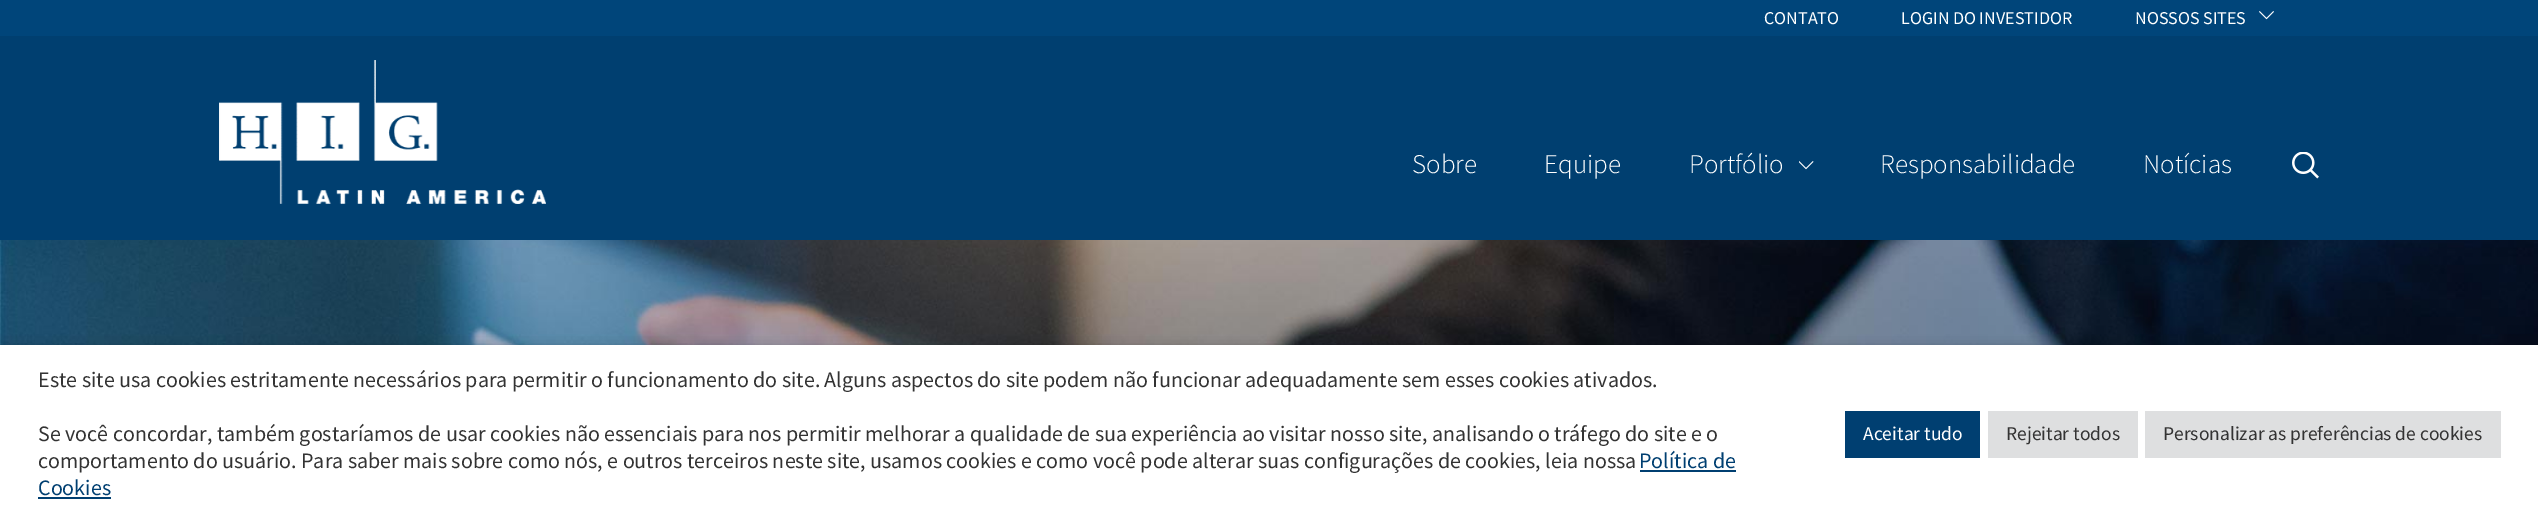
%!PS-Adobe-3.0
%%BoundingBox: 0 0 2538 522
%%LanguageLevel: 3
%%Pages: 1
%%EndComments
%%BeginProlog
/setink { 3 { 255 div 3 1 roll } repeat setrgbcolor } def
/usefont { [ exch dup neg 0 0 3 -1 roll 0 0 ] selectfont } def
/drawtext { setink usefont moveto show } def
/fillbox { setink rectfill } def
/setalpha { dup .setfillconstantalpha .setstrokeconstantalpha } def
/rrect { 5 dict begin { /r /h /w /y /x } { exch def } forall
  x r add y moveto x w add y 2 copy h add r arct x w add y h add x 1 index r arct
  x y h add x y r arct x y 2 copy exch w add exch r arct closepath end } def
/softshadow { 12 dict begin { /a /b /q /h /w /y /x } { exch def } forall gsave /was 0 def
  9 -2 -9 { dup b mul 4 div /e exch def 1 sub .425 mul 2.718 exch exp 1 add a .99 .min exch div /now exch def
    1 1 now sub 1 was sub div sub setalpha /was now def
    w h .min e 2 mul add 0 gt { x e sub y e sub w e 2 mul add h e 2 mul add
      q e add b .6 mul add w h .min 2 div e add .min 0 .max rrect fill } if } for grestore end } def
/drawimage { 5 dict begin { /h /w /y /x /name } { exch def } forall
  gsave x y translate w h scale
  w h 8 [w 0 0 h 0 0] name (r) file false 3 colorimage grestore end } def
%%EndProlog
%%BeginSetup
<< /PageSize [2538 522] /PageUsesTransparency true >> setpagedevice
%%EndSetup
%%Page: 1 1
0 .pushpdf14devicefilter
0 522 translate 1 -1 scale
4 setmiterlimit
0 0 2538 522 255 255 255 fillbox
0 36 2538 204 0 63 112 fillbox
(assets/img1.rgb) 219 60 327 144 drawimage
0 0 2538 36 0 69 122 fillbox
(CONTATO) 1764 24 /SourceSansPro-Regular 18 255 255 255 drawtext
(LOGIN DO INVESTIDOR) 1901 24 /SourceSansPro-Regular 18 255 255 255 drawtext
(NOSSOS SITES) 2135 24 /SourceSansPro-Regular 18 255 255 255 drawtext
(assets/img2.rgb) 2259 11 15 9 drawimage
(Sobre) 1412 173 /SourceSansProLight-Light 27 255 255 255 drawtext
(Equipe) 1544 173 /SourceSansProLight-Light 27 255 255 255 drawtext
(Portfólio) 1689 173 /SourceSansProLight-Light 27 255 255 255 drawtext
(assets/img3.rgb) 1799 161 15 9 drawimage
(Responsabilidade) 1880 173 /SourceSansProLight-Light 27 255 255 255 drawtext
(Notícias) 2143 173 /SourceSansProLight-Light 27 255 255 255 drawtext
(assets/img4.rgb) 2292 152 27 27 drawimage
(assets/img5.rgb) 0 240 2538 105 drawimage
0 0 0 setink
0 353 2538 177 0 7.5 0.5 softshadow
0 345 2538 177 255 255 255 fillbox
(Este site usa cookies estritamente necessários para permitir o funcionamento do site. Alguns aspectos do site podem não funcionar adequadamente sem esses cookies ativados.) 38 387 /SourceSansPro-Regular 22 51 51 51 drawtext
(Se você concordar, também gostaríamos de usar cookies não essenciais para nos permitir melhorar a qualidade de sua experiência ao visitar nosso site, analisando o tráfego do site e o) 38 441 /SourceSansPro-Regular 22 51 51 51 drawtext
(comportamento do usuário. Para saber mais sobre como nós, e outros terceiros neste site, usamos cookies e como você pode alterar suas configurações de cookies, leia nossa) 38 468 /SourceSansPro-Regular 22 51 51 51 drawtext
(Política de) 1639 468 /SourceSansPro-Regular 22 0 63 113 drawtext
1640 470 96 2 0 63 113 fillbox
(Cookies) 38 495 /SourceSansPro-Regular 22 0 63 113 drawtext
38 497 73 2 0 63 113 fillbox
1845 411 135 47 0 63 113 fillbox
(Aceitar tudo) 1863 440 /SourceSansPro-Regular 19.5 255 255 255 drawtext
1988 411 150 47 222 223 224 fillbox
(Rejeitar todos) 2006 440 /SourceSansPro-Regular 19.5 51 51 51 drawtext
2145 411 356 47 222 223 224 fillbox
(Personalizar as preferências de cookies) 2163 440 /SourceSansPro-Regular 19.5 51 51 51 drawtext
.poppdf14devicefilter showpage
%%EOF
